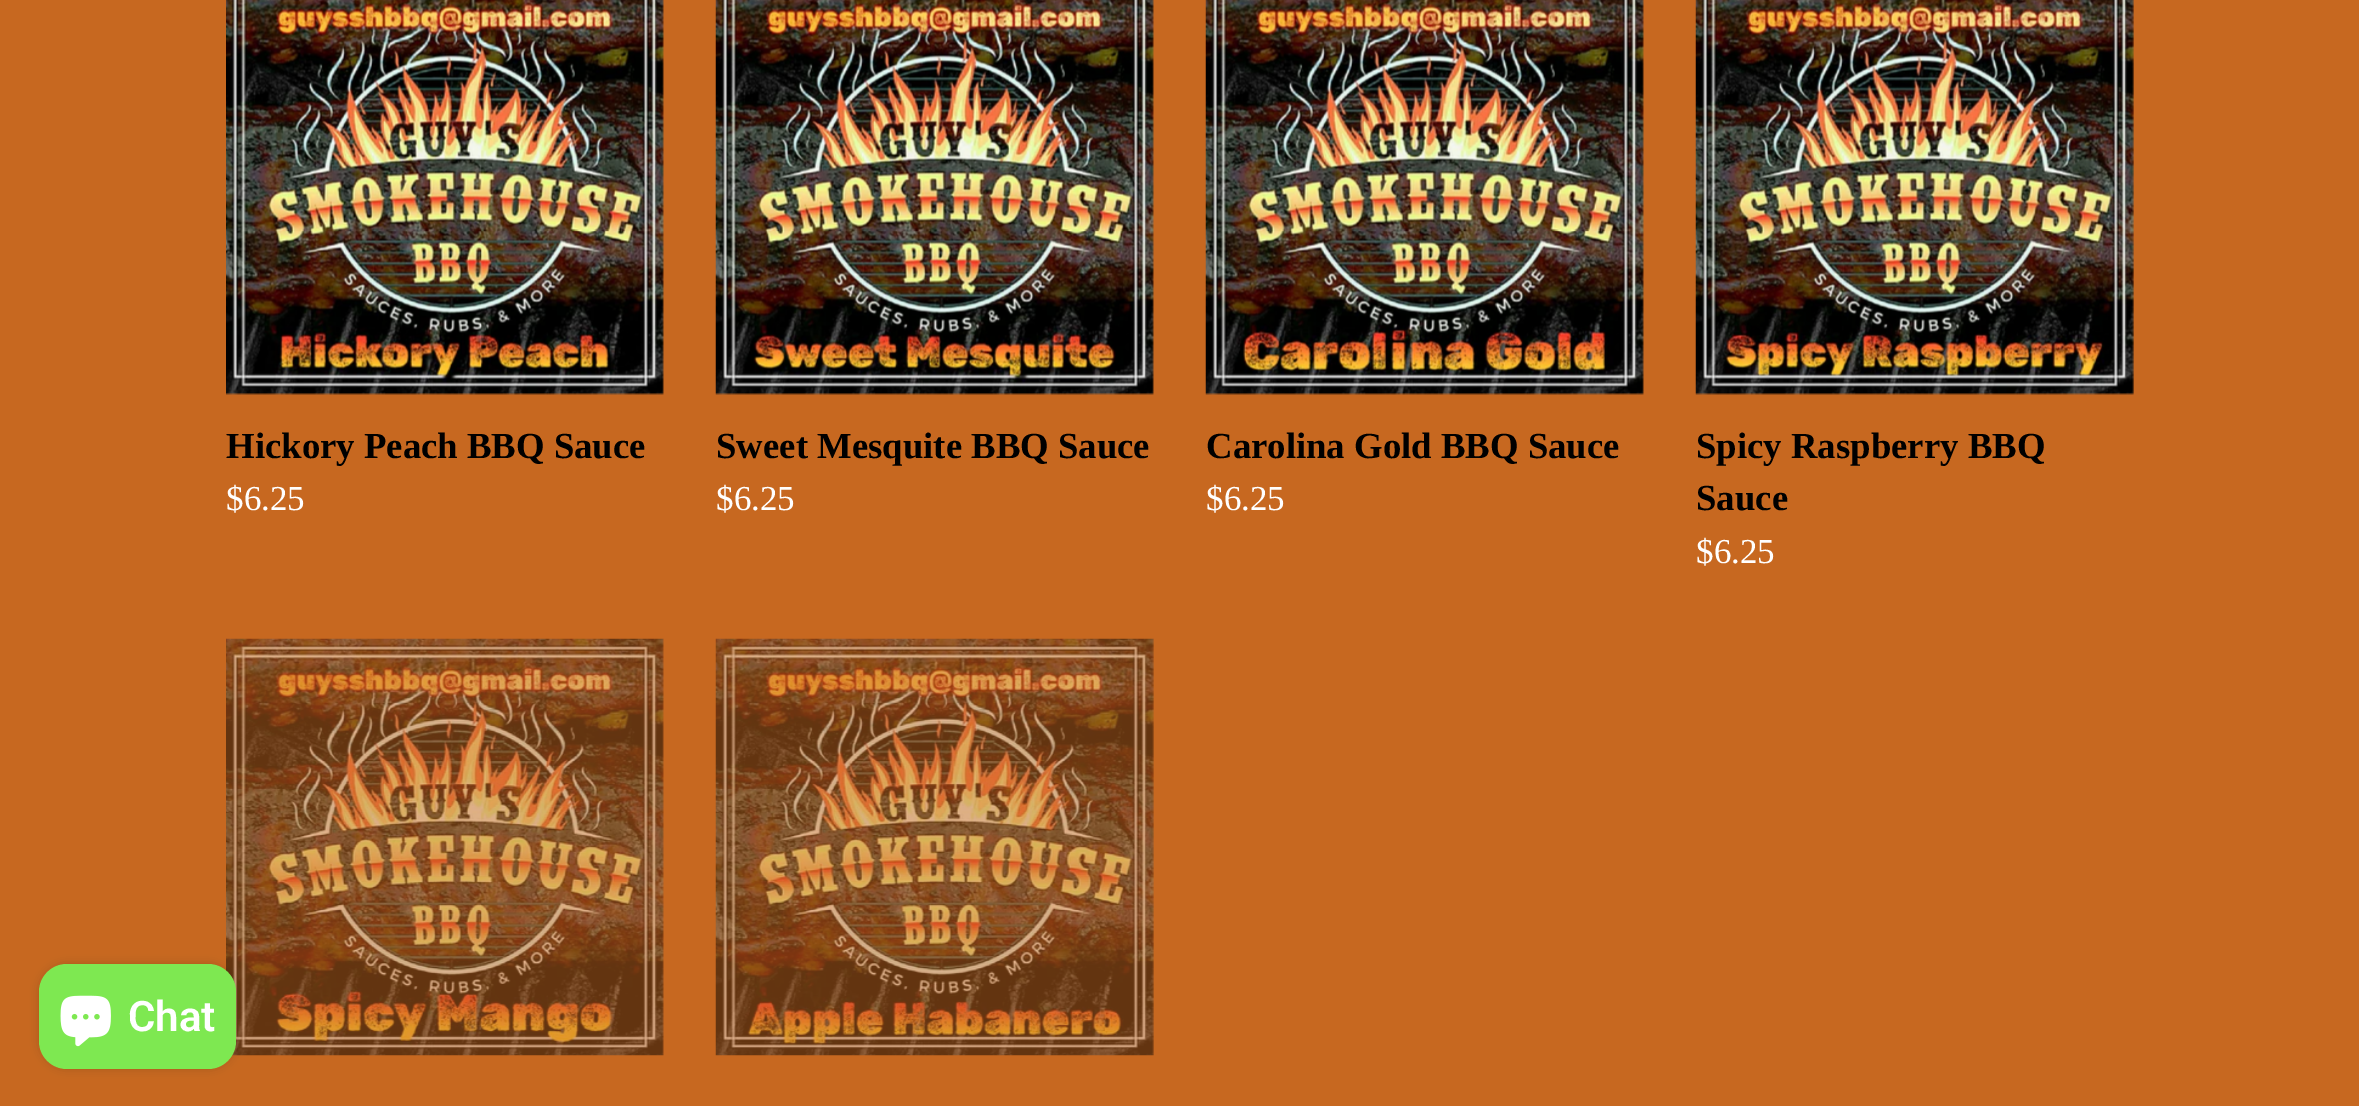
%!PS-Adobe-3.0
%%BoundingBox: 0 0 2359 1106
%%LanguageLevel: 3
%%Pages: 1
%%EndComments
%%BeginProlog
/setink { 3 { 255 div 3 1 roll } repeat setrgbcolor } def
/usefont { [ exch dup neg 0 0 3 -1 roll 0 0 ] selectfont } def
/drawtext { setink usefont moveto show } def
/fillbox { setink rectfill } def
/setalpha { dup .setfillconstantalpha .setstrokeconstantalpha } def
/rrect { 5 dict begin { /r /h /w /y /x } { exch def } forall
  x r add y moveto x w add y 2 copy h add r arct x w add y h add x 1 index r arct
  x y h add x y r arct x y 2 copy exch w add exch r arct closepath end } def
/softshadow { 12 dict begin { /a /b /q /h /w /y /x } { exch def } forall gsave /was 0 def
  9 -2 -9 { dup b mul 4 div /e exch def 1 sub .425 mul 2.718 exch exp 1 add a .99 .min exch div /now exch def
    1 1 now sub 1 was sub div sub setalpha /was now def
    w h .min e 2 mul add 0 gt { x e sub y e sub w e 2 mul add h e 2 mul add
      q e add b .6 mul add w h .min 2 div e add .min 0 .max rrect fill } if } for grestore end } def
/drawimage { 5 dict begin { /h /w /y /x /name } { exch def } forall
  gsave x y translate w h scale
  w h 8 [w 0 0 h 0 0] name (r) file false 3 colorimage grestore end } def
%%EndProlog
%%BeginSetup
<< /PageSize [2359 1106] /PageUsesTransparency true >> setpagedevice
%%EndSetup
%%Page: 1 1
0 .pushpdf14devicefilter
0 1106 translate 1 -1 scale
4 setmiterlimit
0 0 2359 1106 199 104 32 fillbox
(assets/img1.rgb) 226 0 438 395 drawimage
(Hickory Peach BBQ Sauce) 226 458 /LiberationSerif-Bold 36.75 0 0 0 drawtext
($6.25) 226 510 /LiberationSerif-Regular 35 255 255 255 drawtext
(assets/img2.rgb) 715 0 439 395 drawimage
(Sweet Mesquite BBQ Sauce) 716 458 /LiberationSerif-Bold 36.75 0 0 0 drawtext
($6.25) 716 510 /LiberationSerif-Regular 35 255 255 255 drawtext
(assets/img3.rgb) 1205 0 439 395 drawimage
(Carolina Gold BBQ Sauce) 1206 458 /LiberationSerif-Bold 36.75 0 0 0 drawtext
($6.25) 1206 510 /LiberationSerif-Regular 35 255 255 255 drawtext
(assets/img4.rgb) 1695 0 439 395 drawimage
(Spicy Raspberry BBQ) 1696 458 /LiberationSerif-Bold 36.75 0 0 0 drawtext
(Sauce) 1696 510 /LiberationSerif-Bold 36.75 0 0 0 drawtext
($6.25) 1696 563 /LiberationSerif-Regular 35 255 255 255 drawtext
(assets/img5.rgb) 226 638 438 418 drawimage
(assets/img6.rgb) 715 638 439 418 drawimage
0 0 0 setink
39 964 197 105 28 4.5 0.15 softshadow
126 232 81 setink
39 964 197 105 28 rrect fill
(assets/img7.rgb) 60 995 51 52 drawimage
(Chat) 128 1031 /Roboto-SemiBold 42 255 255 255 drawtext
.poppdf14devicefilter showpage
%%EOF
